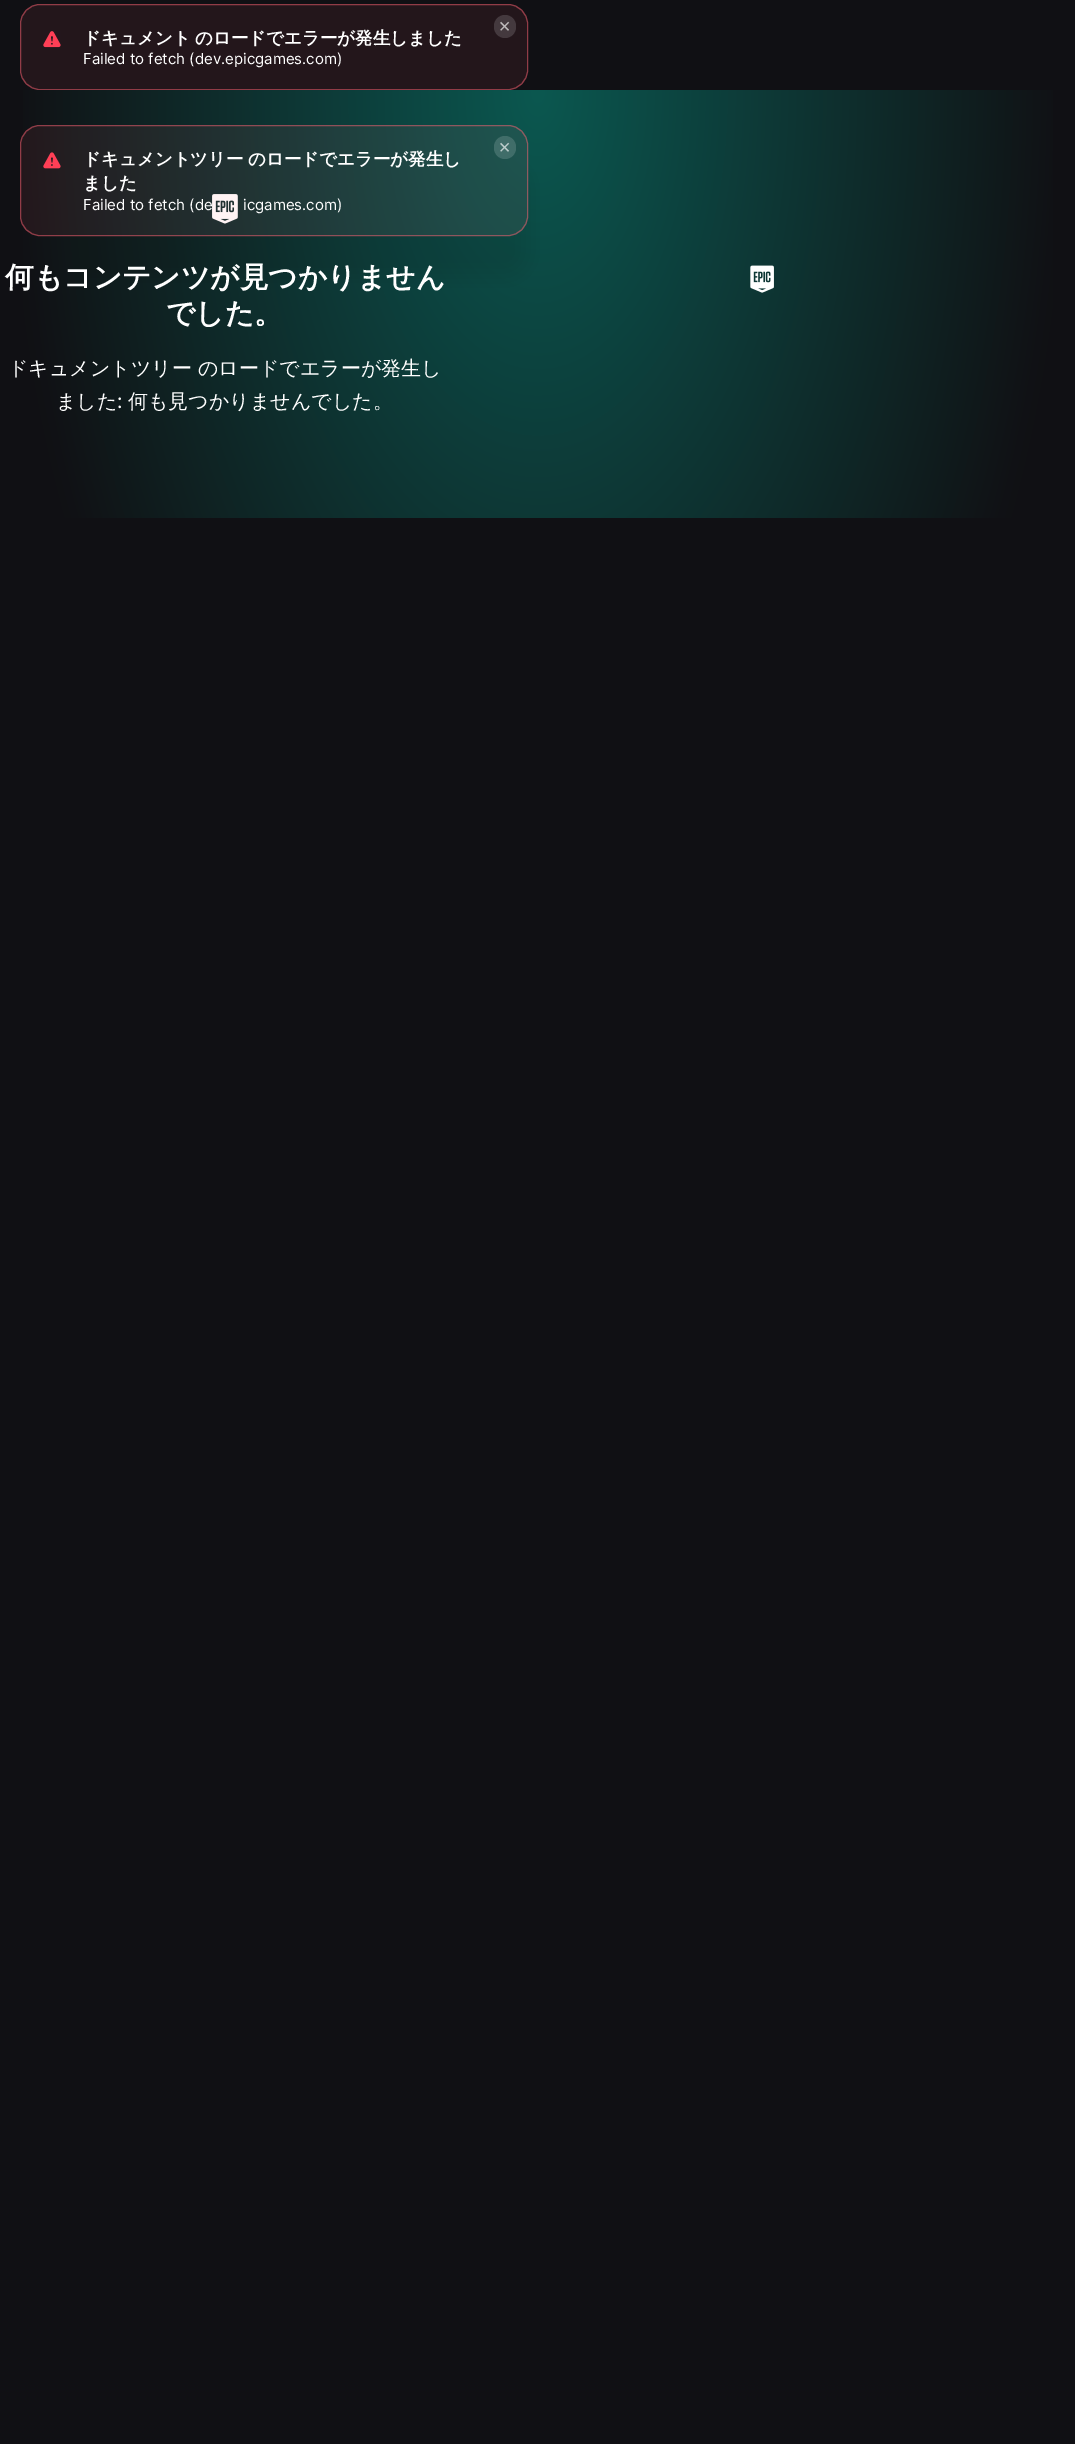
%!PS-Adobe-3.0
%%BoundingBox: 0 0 1075 2444
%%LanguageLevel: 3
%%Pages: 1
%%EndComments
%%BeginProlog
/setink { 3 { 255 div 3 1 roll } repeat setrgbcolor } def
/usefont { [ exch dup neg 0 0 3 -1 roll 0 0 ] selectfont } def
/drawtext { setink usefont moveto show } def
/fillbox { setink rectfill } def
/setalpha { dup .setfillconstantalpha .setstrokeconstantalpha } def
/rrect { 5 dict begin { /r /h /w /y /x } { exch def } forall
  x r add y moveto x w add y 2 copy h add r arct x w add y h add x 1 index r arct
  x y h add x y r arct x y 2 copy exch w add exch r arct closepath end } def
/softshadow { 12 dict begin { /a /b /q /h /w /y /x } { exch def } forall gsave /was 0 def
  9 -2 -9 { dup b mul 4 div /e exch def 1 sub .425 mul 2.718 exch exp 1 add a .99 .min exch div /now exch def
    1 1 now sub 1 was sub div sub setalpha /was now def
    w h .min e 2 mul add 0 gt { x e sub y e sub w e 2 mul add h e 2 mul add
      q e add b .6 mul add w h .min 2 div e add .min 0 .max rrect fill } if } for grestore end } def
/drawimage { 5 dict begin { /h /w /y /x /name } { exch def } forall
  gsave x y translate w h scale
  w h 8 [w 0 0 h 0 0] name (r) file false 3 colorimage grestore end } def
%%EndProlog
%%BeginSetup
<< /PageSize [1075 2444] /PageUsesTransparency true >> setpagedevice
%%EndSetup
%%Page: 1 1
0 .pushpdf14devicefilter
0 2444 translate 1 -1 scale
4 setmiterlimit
0 0 1075 2444 16 16 20 fillbox
0.08 setalpha
255 97 115 setink
20 4 508 86 20 rrect fill
0.5 setalpha
20.5 4.5 507 85 19.5 rrect stroke
1 setalpha
68 57 62 setink
494 15 22 23 11 rrect fill
(×) 498 32 /Inter-Regular 20 190 186 187 drawtext
(assets/img1.rgb) 43 31 18 17 drawimage
/WenQuanYiZenHei-Bold 17.5 usefont
255 255 255 setink
83 44 moveto -1 0 32 (ドキュメント のロードでエラーが発生しました) widthshow
(Failed to fetch \(dev.epicgames.com\)) 83 64 /Inter-Regular 15 255 255 255 drawtext
gsave 23 90 moveto 1053 90 lineto 1053 518 lineto 23 518 lineto closepath clip newpath 538 90 translate 760 1383 scale
<< /ShadingType 3 /ColorSpace /DeviceRGB /Coords [0 0 0 0 0 1] /Extend [true true] /Function << /FunctionType 3 /Domain [0 1] /Functions [<< /FunctionType 2 /Domain [0 1] /C0 [0.043 0.345 0.314] /C1 [0.063 0.063 0.078] /N 1 >> << /FunctionType 2 /Domain [0 1] /C0 [0.063 0.063 0.078] /C1 [0.063 0.063 0.078] /N 1 >>] /Bounds [0.7] /Encode [0 1 0 1] >> >> shfill grestore
(assets/img3.rgb) 212 194 26 30 drawimage
gsave
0 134 moveto 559 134 lineto 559 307 lineto 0 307 lineto closepath 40 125 moveto 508 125 lineto 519 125 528 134 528 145 curveto 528 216 lineto 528 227 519 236 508 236 curveto 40 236 lineto 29 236 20 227 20 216 curveto 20 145 lineto 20 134 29 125 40 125 curveto closepath eoclip newpath
0 0 0 setink
20 165 508 111 20 10 0.1 softshadow
grestore
0.08 setalpha
255 97 115 setink
20 125 508 111 20 rrect fill
0.5 setalpha
20.5 125.5 507 110 19.5 rrect stroke
1 setalpha
64 109 105 setink
494 136 22 23 11 rrect fill
(×) 498 153 /Inter-Regular 20 188 204 203 drawtext
(assets/img2.rgb) 43 152 18 17 drawimage
/WenQuanYiZenHei-Bold 17.5 usefont
255 255 255 setink
83 165 moveto -1 0 32 (ドキュメントツリー のロードでエラーが発生し) widthshow
(ました) 83 189 /WenQuanYiZenHei-Bold 17.5 255 255 255 drawtext
(Failed to fetch \(de) 83 210 /Inter-Regular 15 255 255 255 drawtext
(icgames.com\)) 243 210 /Inter-Regular 15 255 255 255 drawtext
(何もコンテンツが見つかりません) 5 287 /WenQuanYiZenHei-Bold 28.75 255 255 255 drawtext
(でした。) 166 323 /WenQuanYiZenHei-Bold 28.75 255 255 255 drawtext
(ドキュメントツリー のロードでエラーが発生し) 8 375 /WenQuanYiZenHei-Medium 20 255 255 255 drawtext
(ました) 56 408 /WenQuanYiZenHei-Medium 20 255 255 255 drawtext
(:) 117 408 /Inter-Regular 20 255 255 255 drawtext
(何も見つかりませんでした。) 128 408 /WenQuanYiZenHei-Medium 20 255 255 255 drawtext
(assets/img4.rgb) 750 265 24 28 drawimage
.poppdf14devicefilter showpage
%%EOF
